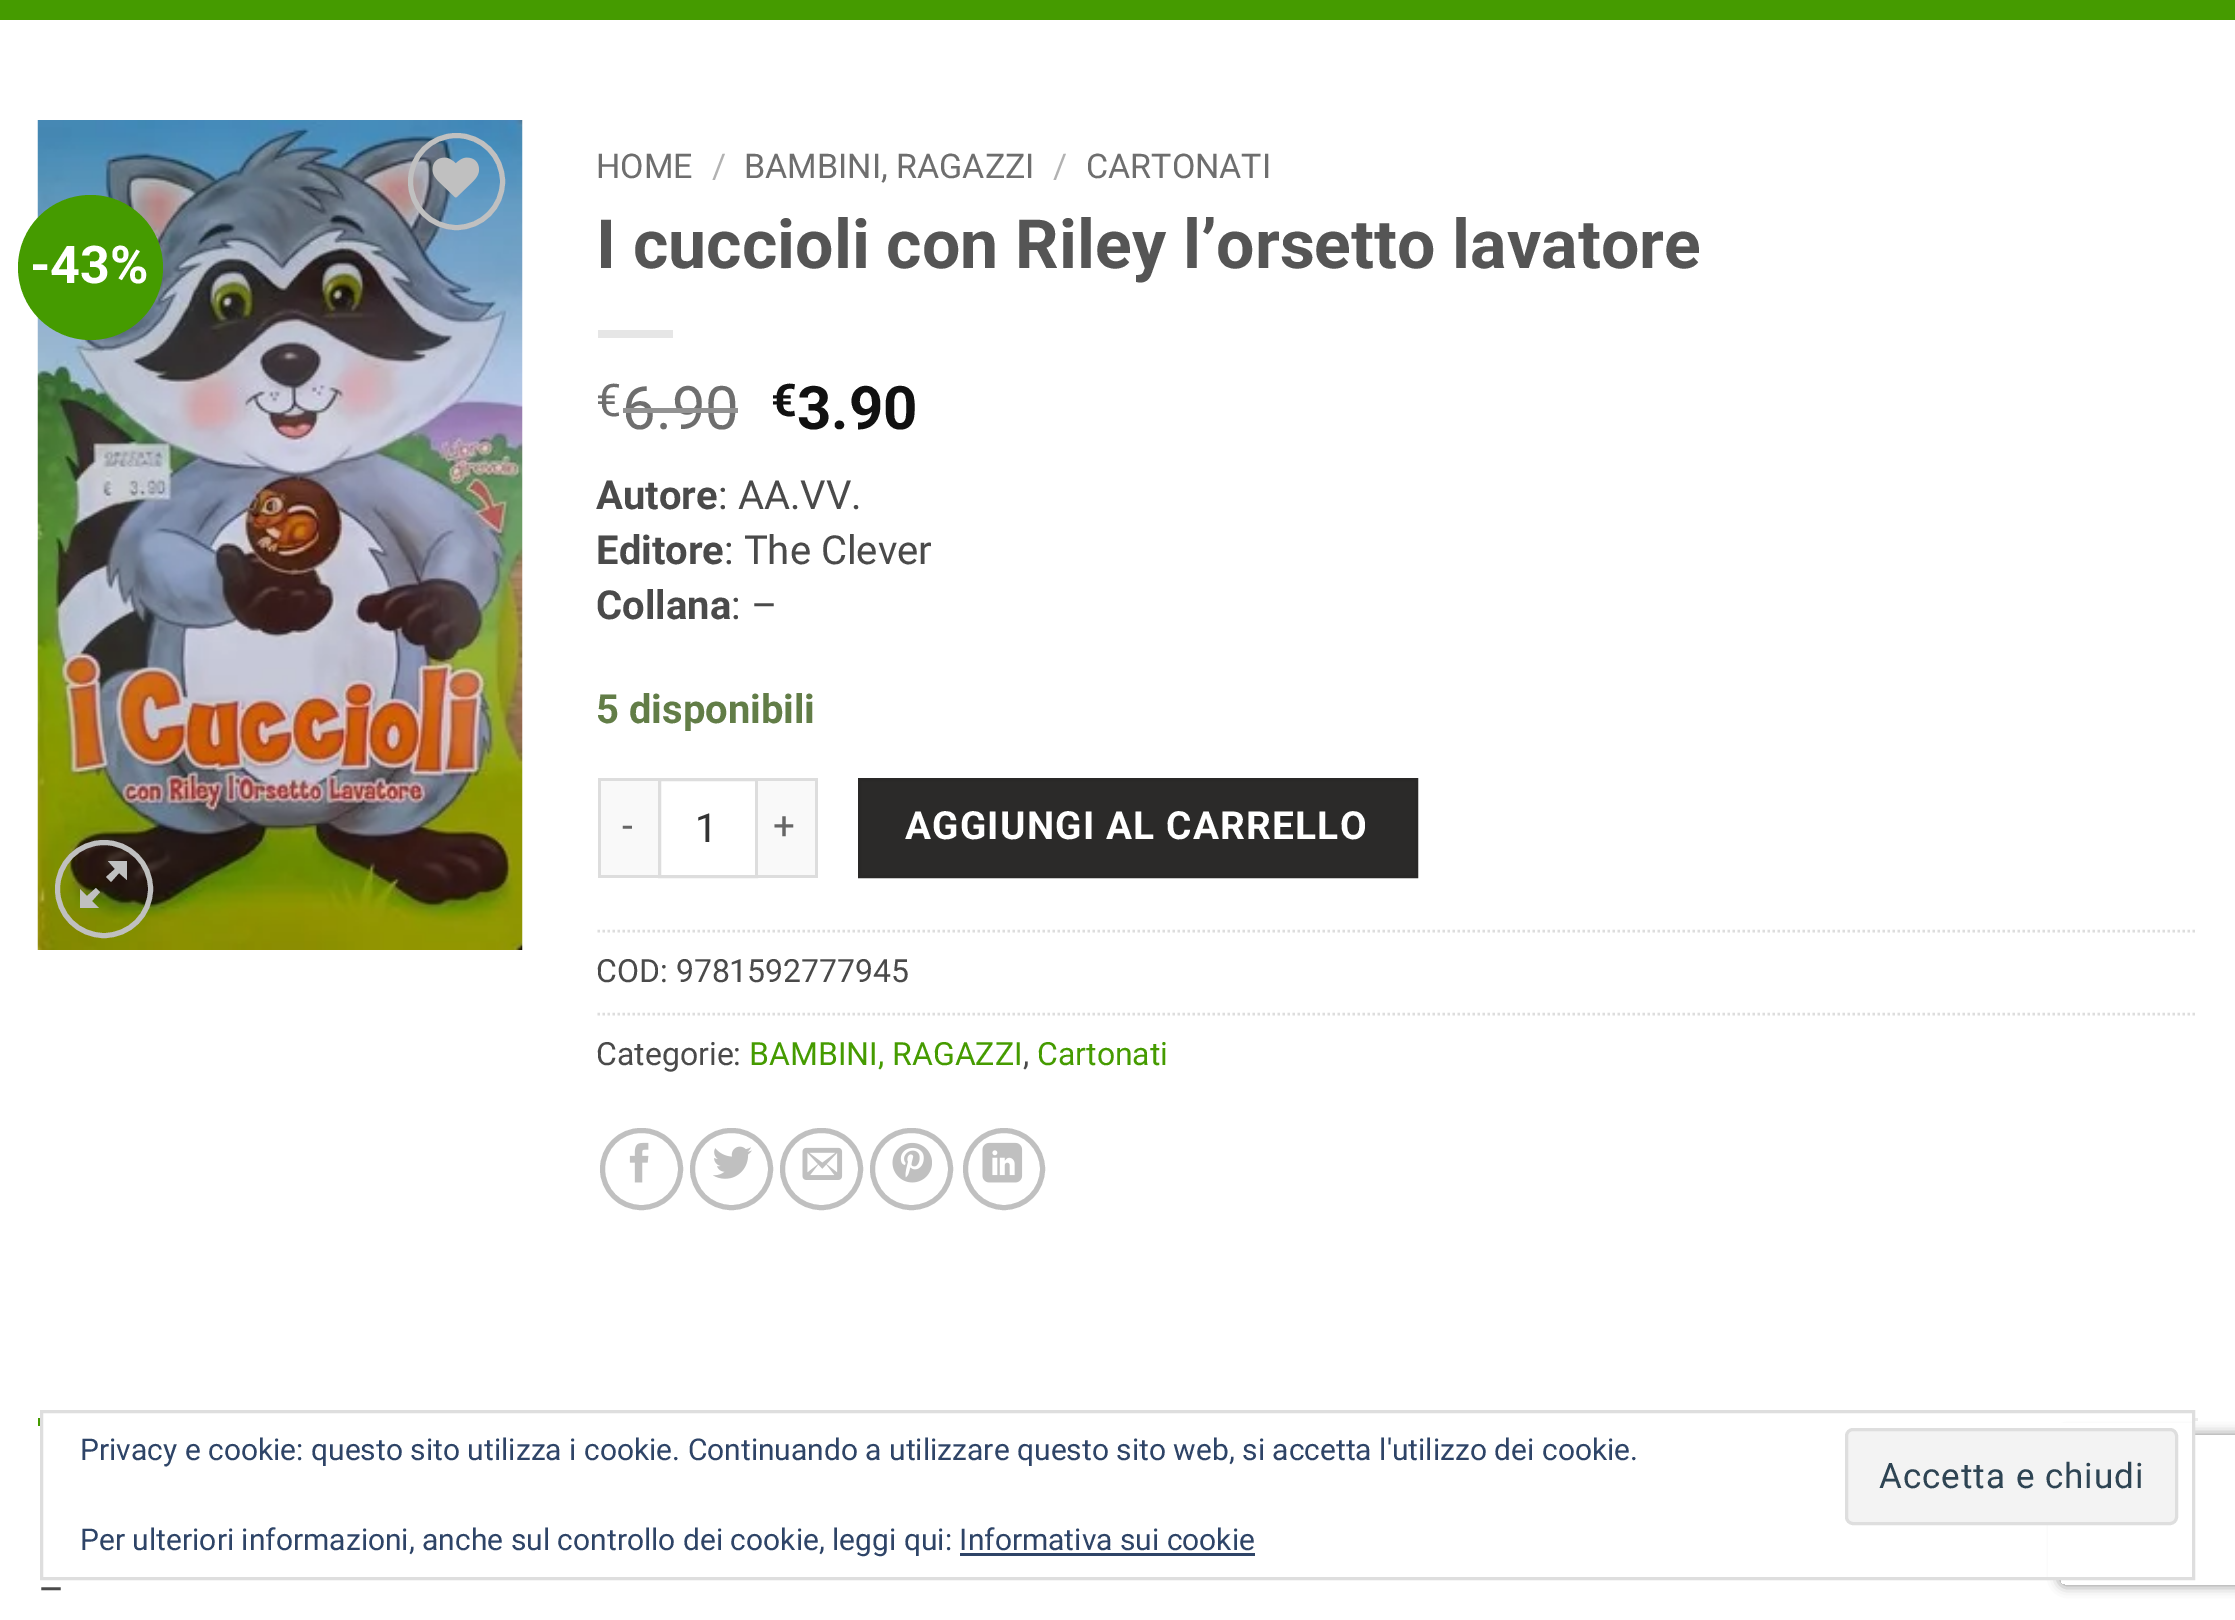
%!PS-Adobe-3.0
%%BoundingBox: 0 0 2235 1620
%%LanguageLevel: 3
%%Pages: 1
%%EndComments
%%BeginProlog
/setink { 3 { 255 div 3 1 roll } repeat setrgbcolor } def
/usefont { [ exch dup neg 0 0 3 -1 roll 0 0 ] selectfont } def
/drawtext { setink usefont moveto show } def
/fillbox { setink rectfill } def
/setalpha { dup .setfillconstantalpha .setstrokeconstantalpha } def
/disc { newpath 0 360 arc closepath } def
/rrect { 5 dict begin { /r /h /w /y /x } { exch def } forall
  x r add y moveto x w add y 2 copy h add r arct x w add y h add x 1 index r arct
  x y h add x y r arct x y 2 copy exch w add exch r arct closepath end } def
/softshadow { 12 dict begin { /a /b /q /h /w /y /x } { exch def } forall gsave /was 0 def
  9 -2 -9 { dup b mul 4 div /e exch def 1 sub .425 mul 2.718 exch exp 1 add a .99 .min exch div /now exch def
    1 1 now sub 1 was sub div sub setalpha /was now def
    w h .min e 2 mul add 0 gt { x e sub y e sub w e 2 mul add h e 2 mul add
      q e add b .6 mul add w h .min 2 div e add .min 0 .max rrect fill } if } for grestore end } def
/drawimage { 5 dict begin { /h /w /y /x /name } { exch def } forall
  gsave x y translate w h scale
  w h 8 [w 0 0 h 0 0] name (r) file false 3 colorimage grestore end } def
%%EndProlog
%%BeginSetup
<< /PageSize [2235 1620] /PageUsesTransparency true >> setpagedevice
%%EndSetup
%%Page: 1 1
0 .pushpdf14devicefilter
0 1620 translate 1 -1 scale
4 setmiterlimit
0 0 2235 1620 255 255 255 fillbox
0 0 2235 20 69 155 0 fillbox
(assets/img1.rgb) 37 120 486 830 drawimage
192 192 192 setink
5 setlinewidth
456.5 181.5 46 disc stroke
(assets/img2.rgb) 432 157 47 41 drawimage
69 155 0 setink
90.5 267.5 72.5 disc fill
(-43%) 30 283 /Roboto-Bold 52 255 255 255 drawtext
192 192 192 setink
104 889 46.5 disc stroke
127 861 moveto 127 880 lineto 119 873 lineto 111 882 lineto 106 877 lineto 115 869 lineto 108 861 lineto closepath 100 892 moveto 92 901 lineto 99 908 lineto 80 908 lineto 80 889 lineto 87 896 lineto 96 888 lineto closepath fill
(HOME) 596 178 /Roboto-Regular 34 110 110 110 drawtext
(/) 712 178 /Roboto-Regular 34 178 178 178 drawtext
(BAMBINI, RAGAZZI) 744 178 /Roboto-Regular 34 110 110 110 drawtext
(/) 1053 178 /Roboto-Regular 34 178 178 178 drawtext
(CARTONATI) 1086 178 /Roboto-Regular 34 110 110 110 drawtext
(I cuccioli con Riley l’orsetto lavatore) 596 268 /Roboto-Bold 68 85 85 85 drawtext
598 330 75 8 230 230 230 fillbox
(€) 596 416 /Roboto-Regular 45 110 110 110 drawtext
(6.90) 622 429 /Roboto-Regular 60 110 110 110 drawtext
623 408 115 5 146 146 146 fillbox
(€) 771 416 /Roboto-Bold 45 17 17 17 drawtext
(3.90) 797 429 /Roboto-Bold 60 17 17 17 drawtext
(Autore) 596 509 /Roboto-Bold 40 74 74 74 drawtext
(: AA.VV.) 718 509 /Roboto-Regular 40 74 74 74 drawtext
(Editore) 596 564 /Roboto-Bold 40 74 74 74 drawtext
(: The Clever) 724 564 /Roboto-Regular 40 74 74 74 drawtext
(Collana) 596 619 /Roboto-Bold 40 74 74 74 drawtext
(: –) 731 619 /Roboto-Regular 40 74 74 74 drawtext
(5 disponibili) 596 723 /Roboto-Bold 40 98 125 71 drawtext
601 781 57 94 249 249 249 fillbox
598 778 60 3 221 221 221 fillbox
598 875 60 3 221 221 221 fillbox
598 778 3 100 221 221 221 fillbox
/Roboto-Regular 38.75 usefont
102 102 102 setink
622 839 moveto 1.2 0 (-) ashow
221 221 221 setink
3 setlinewidth
659.5 779.5 97 97 rectstroke
(1) 695 842 /Roboto-Regular 40 51 51 51 drawtext
758 781 57 94 249 249 249 fillbox
758 778 60 3 221 221 221 fillbox
815 778 3 100 221 221 221 fillbox
758 875 60 3 221 221 221 fillbox
/Roboto-Regular 38.75 usefont
102 102 102 setink
773 839 moveto 1.2 0 (+) ashow
43 42 41 setink
859.5 779.5 moveto 1416.5 779.5 lineto 1416.5 876.5 lineto 859.5 876.5 lineto closepath gsave fill grestore
41 40 39 setink
stroke
/Roboto-Bold 38.75 usefont
255 255 255 setink
905 839 moveto 1.2 0 (AGGIUNGI AL CARRELLO) ashow
221 221 221 setink
2.5 setlinewidth
[2.5 2.5] 0 setdash
597.5 931 moveto 2197.5 931 lineto stroke
(COD: 9781592777945) 596 982 /Roboto-Regular 32 74 74 74 drawtext
221 221 221 setink
597.5 1014 moveto 2197.5 1014 lineto stroke
(Categorie:) 596 1065 /Roboto-Regular 32 74 74 74 drawtext
(BAMBINI, RAGAZZI) 749 1065 /Roboto-Regular 32 69 155 0 drawtext
(,) 1023 1065 /Roboto-Regular 32 74 74 74 drawtext
(Cartonati) 1037 1065 /Roboto-Regular 32 69 155 0 drawtext
192 192 192 setink
5 setlinewidth
[] 0 setdash
602.5 1130.5 78 77 38.5 rrect stroke
(assets/img3.rgb) 629 1142 20 41 drawimage
692.5 1130.5 78 77 38.5 rrect stroke
(assets/img4.rgb) 713 1146 39 33 drawimage
782.5 1130.5 78 77 38.5 rrect stroke
(assets/img5.rgb) 802 1147 41 33 drawimage
872.5 1130.5 78 77 38.5 rrect stroke
(assets/img6.rgb) 892 1142 40 41 drawimage
1004 1169 38.5 disc stroke
(assets/img7.rgb) 982 1142 41 41 drawimage
2195 1418 3 3 236 236 236 fillbox
38 1418 2 8 69 155 0 fillbox
(–) 38 1603 /Roboto-Regular 40 74 74 74 drawtext
gsave
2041 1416 moveto 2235 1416 lineto 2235 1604 lineto 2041 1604 lineto closepath 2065 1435 moveto 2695 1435 lineto 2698 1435 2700 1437 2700 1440 curveto 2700 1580 lineto 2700 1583 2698 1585 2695 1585 curveto 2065 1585 lineto 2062 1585 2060 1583 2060 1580 curveto 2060 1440 lineto 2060 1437 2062 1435 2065 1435 curveto closepath eoclip newpath
128 128 128 setink
2060 1435 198 150 5 6 1 softshadow
grestore
2048 1423 144 154 255 255 255 fillbox
222 222 222 setink
3 setlinewidth
41.5 1411.5 2152 167 rectstroke
(Privacy e cookie: questo sito utilizza i cookie. Continuando a utilizzare questo sito web, si accetta l'utilizzo dei cookie.) 80 1460 /Roboto-Regular 30 46 68 103 drawtext
243 243 243 setink
1846.5 1429.5 330 94 6.5 rrect gsave fill grestore
222 222 222 setink
stroke
/Roboto-Regular 35 usefont
46 68 83 setink
1879 1488 moveto 1 0 (Accetta e chiudi) ashow
(Per ulteriori informazioni, anche sul controllo dei cookie, leggi qui: Informativa sui cookie) 80 1550 /Roboto-Regular 30 46 68 103 drawtext
960 1553 295 3 46 68 103 fillbox
.poppdf14devicefilter showpage
%%EOF
